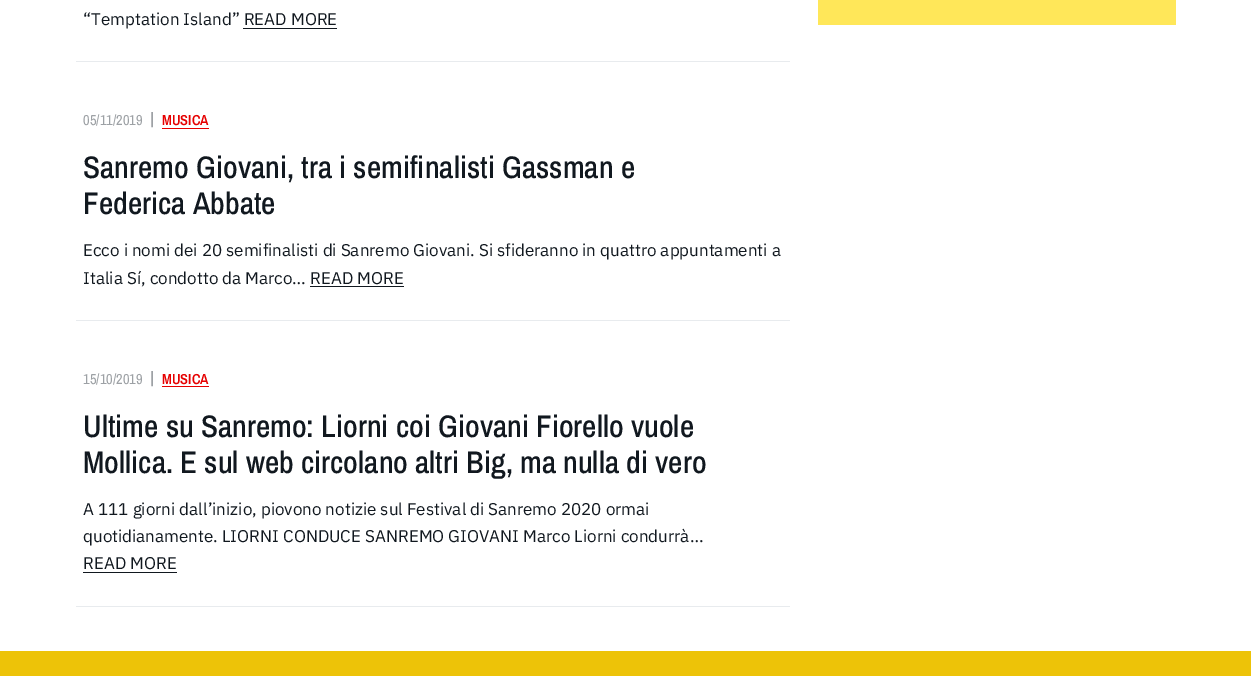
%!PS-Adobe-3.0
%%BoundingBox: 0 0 1251 676
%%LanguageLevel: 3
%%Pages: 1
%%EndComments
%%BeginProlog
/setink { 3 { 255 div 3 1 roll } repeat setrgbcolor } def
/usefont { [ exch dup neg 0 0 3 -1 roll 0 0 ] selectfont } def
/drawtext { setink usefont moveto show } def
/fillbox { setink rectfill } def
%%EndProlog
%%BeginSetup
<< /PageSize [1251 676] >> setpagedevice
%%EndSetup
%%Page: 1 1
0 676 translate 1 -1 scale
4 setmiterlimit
0 0 1251 676 255 255 255 fillbox
76 61 714 1 232 235 238 fillbox
(“Temptation Island” READ MORE) 83 25 /IBMPlexSans-Regular 17 17 24 31 drawtext
243 28 94 1 17 24 31 fillbox
76 320 714 1 232 235 238 fillbox
(05/11/2019) 83 125 /ArchivoNarrow-Regular 14.5 157 161 165 drawtext
(|) 149 125 /IBMPlexSans-SemiBold 17 157 161 165 drawtext
(MUSICA) 162 125 /ArchivoNarrow-SemiBold 14.5 230 0 0 drawtext
162 128 47 1 230 0 0 fillbox
(Sanremo Giovani, tra i semifinalisti Gassman e) 83 178 /ArchivoNarrow-Medium 31.25 17 24 31 drawtext
(Federica Abbate) 83 214 /ArchivoNarrow-Medium 31.25 17 24 31 drawtext
(Ecco i nomi dei 20 semifinalisti di Sanremo Giovani. Si sfideranno in quattro appuntamenti a) 83 256 /IBMPlexSans-Regular 17 17 24 31 drawtext
(Italia Sí, condotto da Marco… READ MORE) 83 284 /IBMPlexSans-Regular 17 17 24 31 drawtext
310 286 94 1 17 24 31 fillbox
76 606 714 1 232 235 238 fillbox
(15/10/2019) 83 384 /ArchivoNarrow-Regular 14.5 157 161 165 drawtext
(|) 149 384 /IBMPlexSans-SemiBold 17 157 161 165 drawtext
(MUSICA) 162 384 /ArchivoNarrow-SemiBold 14.5 230 0 0 drawtext
162 386 47 1 230 0 0 fillbox
(Ultime su Sanremo: Liorni coi Giovani Fiorello vuole) 83 437 /ArchivoNarrow-Medium 31.25 17 24 31 drawtext
(Mollica. E sul web circolano altri Big, ma nulla di vero) 83 473 /ArchivoNarrow-Medium 31.25 17 24 31 drawtext
(A 111 giorni dall’inizio, piovono notizie sul Festival di Sanremo 2020 ormai) 83 515 /IBMPlexSans-Regular 17 17 24 31 drawtext
(quotidianamente. LIORNI CONDUCE SANREMO GIOVANI Marco Liorni condurrà…) 83 542 /IBMPlexSans-Regular 17 17 24 31 drawtext
(READ MORE) 83 569 /IBMPlexSans-Regular 17 17 24 31 drawtext
83 572 94 1 17 24 31 fillbox
818 0 358 25 255 231 89 fillbox
0 651 1251 25 237 195 8 fillbox
showpage
%%EOF
